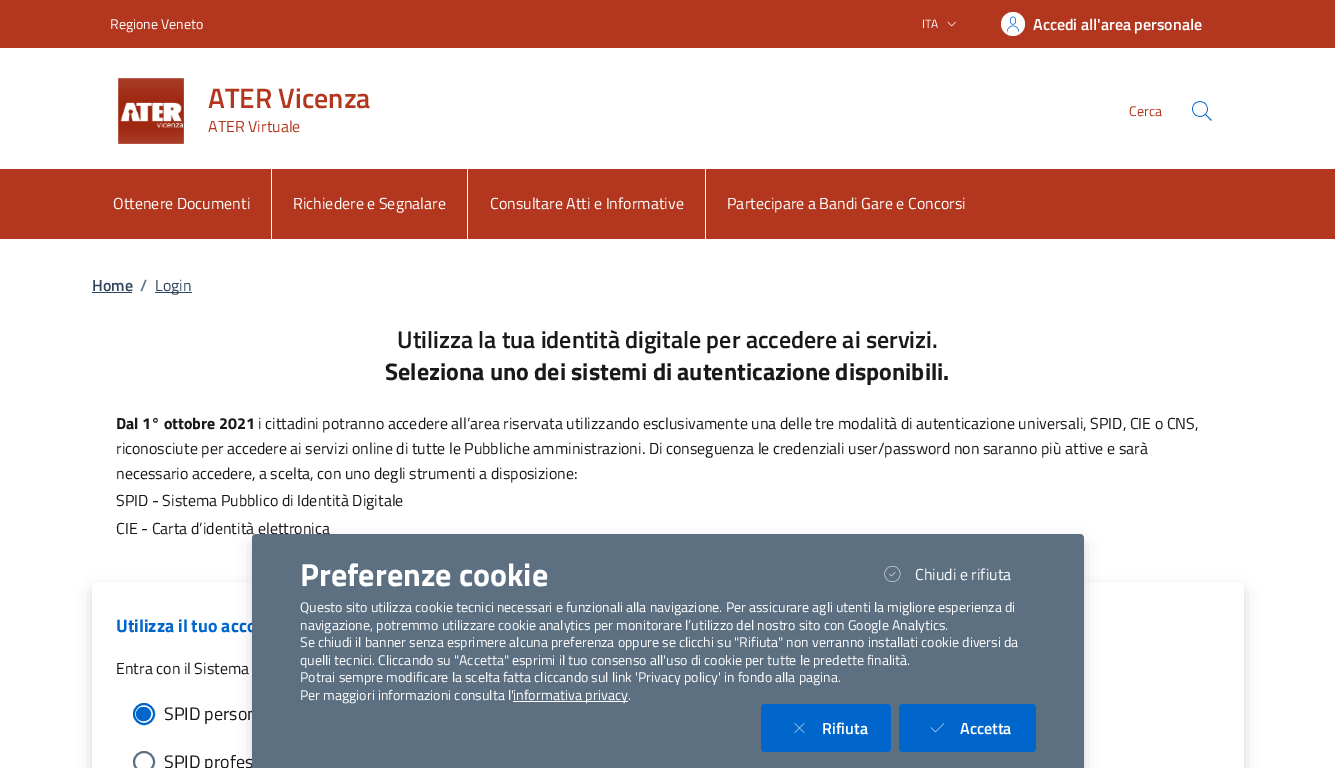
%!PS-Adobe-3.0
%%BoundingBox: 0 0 1335 768
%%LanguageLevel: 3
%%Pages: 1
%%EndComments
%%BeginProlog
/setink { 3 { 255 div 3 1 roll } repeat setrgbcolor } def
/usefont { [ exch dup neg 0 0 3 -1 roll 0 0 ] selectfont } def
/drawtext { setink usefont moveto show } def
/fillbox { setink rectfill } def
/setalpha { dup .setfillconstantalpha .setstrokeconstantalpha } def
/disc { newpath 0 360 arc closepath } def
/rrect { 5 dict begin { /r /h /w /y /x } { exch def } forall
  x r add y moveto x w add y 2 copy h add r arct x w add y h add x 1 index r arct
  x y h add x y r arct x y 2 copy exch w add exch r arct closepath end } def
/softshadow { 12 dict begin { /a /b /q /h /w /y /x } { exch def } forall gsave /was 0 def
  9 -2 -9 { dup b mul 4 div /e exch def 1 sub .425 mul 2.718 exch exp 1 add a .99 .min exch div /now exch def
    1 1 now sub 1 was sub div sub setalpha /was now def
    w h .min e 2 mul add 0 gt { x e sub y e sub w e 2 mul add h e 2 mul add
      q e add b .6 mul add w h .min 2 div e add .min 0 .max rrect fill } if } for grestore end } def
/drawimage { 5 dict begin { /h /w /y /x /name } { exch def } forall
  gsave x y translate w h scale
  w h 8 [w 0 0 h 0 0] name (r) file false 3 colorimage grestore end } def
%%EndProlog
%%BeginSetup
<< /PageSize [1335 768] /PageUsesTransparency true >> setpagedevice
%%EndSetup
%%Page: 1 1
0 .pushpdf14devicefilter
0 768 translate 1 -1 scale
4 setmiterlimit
0 0 1335 768 255 255 255 fillbox
0 0 1335 48 179 55 30 fillbox
(Regione Veneto) 110 29 /TitilliumWeb-Regular 14 255 255 255 drawtext
(ITA) 922 28 /TitilliumWeb-Regular 12 255 255 255 drawtext
(assets/img1.rgb) 947 21 9 6 drawimage
1013 24 12 disc fill
(assets/img2.rgb) 1007 16 12 16 drawimage
(Accedi all'area personale) 1033 30 /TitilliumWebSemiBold-SemiBold 16 255 255 255 drawtext
(assets/img3.rgb) 118 78 66 66 drawimage
(ATER Vicenza) 208 108 /TitilliumWebSemiBold-SemiBold 28 179 55 30 drawtext
(ATER Virtuale) 208 132 /TitilliumWeb-Regular 16 179 55 30 drawtext
(Cerca) 1129 116 /TitilliumWeb-Regular 14 179 55 30 drawtext
(assets/img4.rgb) 1192 101 20 20 drawimage
0 169 1335 70 179 55 30 fillbox
271 169 1 70 255 255 255 fillbox
(Ottenere Documenti) 113 209 /TitilliumWeb-Regular 16 255 255 255 drawtext
467 169 1 70 255 255 255 fillbox
(Richiedere e Segnalare) 293 209 /TitilliumWeb-Regular 16 255 255 255 drawtext
705 169 1 70 255 255 255 fillbox
(Consultare Atti e Informative) 490 209 /TitilliumWeb-Regular 16 255 255 255 drawtext
(Partecipare a Bandi Gare e Concorsi) 727 209 /TitilliumWeb-Regular 16 255 255 255 drawtext
(Home) 92 291 /TitilliumWebSemiBold-SemiBold 16 48 71 95 drawtext
92 292 40 1 48 71 95 fillbox
(/) 140 291 /TitilliumWebSemiBold-SemiBold 16 93 112 131 drawtext
155 292 37 1 48 71 95 fillbox
(Login) 155 291 /TitilliumWeb-Regular 16 48 71 95 drawtext
(Utilizza la tua identità digitale per accedere ai servizi.) 397 348 /TitilliumWebSemiBold-SemiBold 24 25 25 25 drawtext
(Seleziona uno dei sistemi di autenticazione disponibili.) 385 380 /TitilliumWeb-Bold 24 25 25 25 drawtext
(Dal 1° ottobre 2021) 116 429 /TitilliumWeb-Bold 16 25 25 25 drawtext
(i cittadini potranno accedere all’area riservata utilizzando esclusivamente una delle tre modalità di autenticazione universali, SPID, CIE o CNS,) 258 429 /TitilliumWeb-Regular 16 25 25 25 drawtext
(riconosciute per accedere ai servizi online di tutte le Pubbliche amministrazioni. Di conseguenza le credenziali user/password non saranno più attive e sarà) 116 454 /TitilliumWeb-Regular 16 25 25 25 drawtext
(necessario accedere, a scelta, con uno degli strumenti a disposizione:) 116 479 /TitilliumWeb-Regular 16 25 25 25 drawtext
(SPID - Sistema Pubblico di Identità Digitale) 116 506 /TitilliumWeb-Regular 16 25 25 25 drawtext
(CIE - Carta d’identità elettronica) 116 534 /TitilliumWeb-Regular 16 25 25 25 drawtext
gsave
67 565 moveto 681 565 lineto 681 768 lineto 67 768 lineto closepath 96 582 moveto 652 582 lineto 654 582 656 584 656 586 curveto 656 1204 lineto 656 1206 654 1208 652 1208 curveto 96 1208 lineto 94 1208 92 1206 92 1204 curveto 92 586 lineto 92 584 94 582 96 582 curveto closepath eoclip newpath
0 0 0 setink
92 590 564 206 4 8 0.15 softshadow
grestore
(Utilizza il tuo acco) 116 632 /TitilliumWeb-Bold 18 0 102 204 drawtext
(Entra con il Sistema) 116 674 /TitilliumWeb-Regular 16 25 25 25 drawtext
0 102 204 setink
2 setlinewidth
144 714 10 disc stroke
136.5 707.5 14 13 6.5 rrect gsave fill grestore
1 setlinewidth
stroke
(SPID person) 164 720 /TitilliumWeb-Regular 18 25 25 25 drawtext
93 112 131 setink
2 setlinewidth
144 762 10 disc stroke
(SPID profes) 164 768 /TitilliumWeb-Regular 18 25 25 25 drawtext
gsave
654 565 moveto 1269 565 lineto 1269 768 lineto 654 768 lineto closepath 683 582 moveto 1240 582 lineto 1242 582 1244 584 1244 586 curveto 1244 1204 lineto 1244 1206 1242 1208 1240 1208 curveto 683 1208 lineto 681 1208 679 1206 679 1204 curveto 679 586 lineto 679 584 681 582 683 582 curveto closepath eoclip newpath
0 0 0 setink
679 590 565 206 4 8 0.15 softshadow
grestore
0 0 0 setink
252 542 832 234 4 8 0.15 softshadow
92 112 130 setink
256 534 moveto 1080 534 lineto 1082 534 1084 536 1084 538 curveto 1084 768 lineto 252 768 lineto 252 538 lineto 252 536 254 534 256 534 curveto closepath fill
(Preferenze cookie) 300 586 /TitilliumWeb-Bold 32 255 255 255 drawtext
(assets/img5.rgb) 884 566 17 16 drawimage
(Chiudi e rifiuta) 915 580 /TitilliumWeb-Regular 16 255 255 255 drawtext
(Questo sito utilizza cookie tecnici necessari e funzionali alla navigazione. Per assicurare agli utenti la migliore esperienza di) 300 612 /TitilliumWeb-Regular 14 255 255 255 drawtext
(navigazione, potremmo utilizzare cookie analytics per monitorare l’utilizzo del nostro sito con Google Analytics.) 300 630 /TitilliumWeb-Regular 14 255 255 255 drawtext
(Se chiudi il banner senza esprimere alcuna preferenza oppure se clicchi su "Rifiuta" non verranno installati cookie diversi da) 300 647 /TitilliumWeb-Regular 14 255 255 255 drawtext
(quelli tecnici. Cliccando su "Accetta" esprimi il tuo consenso all'uso di cookie per tutte le predette finalità.) 300 665 /TitilliumWeb-Regular 14 255 255 255 drawtext
(Potrai sempre modificare la scelta fatta cliccando sul link 'Privacy policy' in fondo alla pagina.) 300 682 /TitilliumWeb-Regular 14 255 255 255 drawtext
(Per maggiori informazioni consulta l') 300 700 /TitilliumWeb-Regular 14 255 255 255 drawtext
513 701 115 1 255 255 255 fillbox
(informativa privacy) 513 700 /TitilliumWeb-Regular 14.25 255 255 255 drawtext
(.) 628 700 /TitilliumWeb-Regular 14 255 255 255 drawtext
0 102 204 setink
761 704 130 48 4 rrect fill
(assets/img6.rgb) 794 723 11 10 drawimage
(Rifiuta) 822 734 /TitilliumWebSemiBold-SemiBold 16 255 255 255 drawtext
0 102 204 setink
899 704 137 48 4 rrect fill
(assets/img7.rgb) 930 723 15 10 drawimage
(Accetta) 960 734 /TitilliumWebSemiBold-SemiBold 16 255 255 255 drawtext
.poppdf14devicefilter showpage
%%EOF
